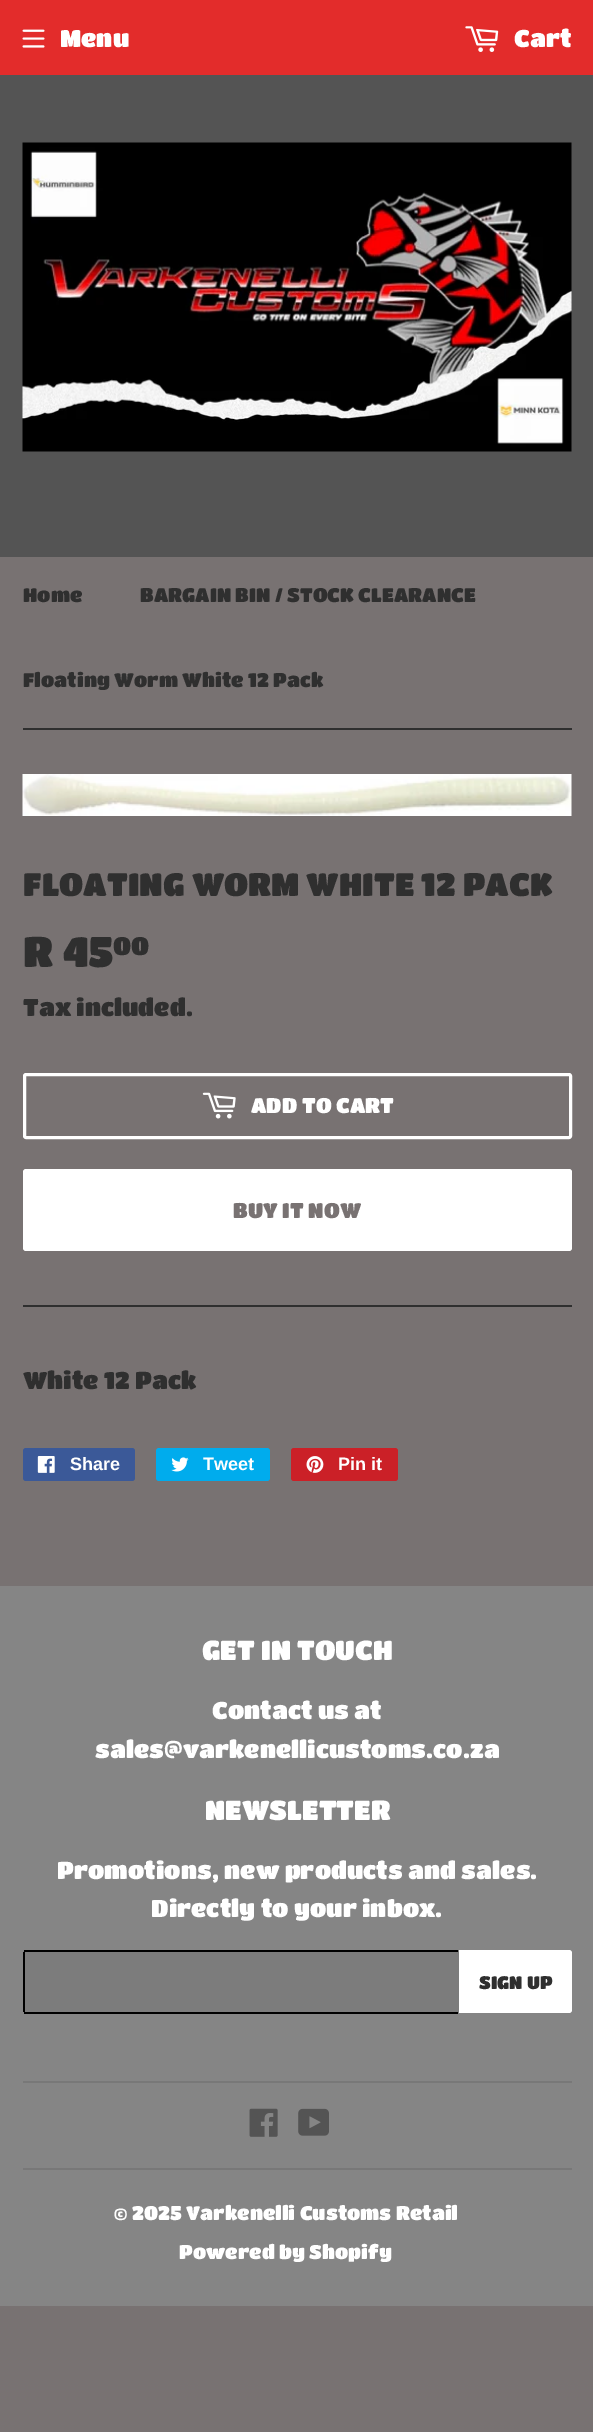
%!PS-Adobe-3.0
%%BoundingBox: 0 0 593 2432
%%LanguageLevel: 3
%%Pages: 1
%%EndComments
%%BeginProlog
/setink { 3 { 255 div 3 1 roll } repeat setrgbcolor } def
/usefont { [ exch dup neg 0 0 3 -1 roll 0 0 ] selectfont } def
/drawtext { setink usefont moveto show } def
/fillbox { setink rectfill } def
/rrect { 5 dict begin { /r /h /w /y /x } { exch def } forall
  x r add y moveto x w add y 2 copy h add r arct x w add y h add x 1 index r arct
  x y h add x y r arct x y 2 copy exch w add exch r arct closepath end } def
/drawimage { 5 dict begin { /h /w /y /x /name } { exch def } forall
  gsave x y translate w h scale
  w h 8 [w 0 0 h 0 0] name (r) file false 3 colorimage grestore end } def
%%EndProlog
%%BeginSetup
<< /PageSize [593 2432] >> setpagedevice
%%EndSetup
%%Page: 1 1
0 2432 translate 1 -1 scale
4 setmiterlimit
0 0 593 2432 120 114 114 fillbox
0 0 593 75 227 44 43 fillbox
(assets/img1.rgb) 22 29 23 19 drawimage
(Menu) 60 47 /TitanOne-Regular 24 255 255 255 drawtext
(assets/img2.rgb) 465 26 34 26 drawimage
(Cart) 514 47 /TitanOne-Regular 24 255 255 255 drawtext
0 75 593 482 84 84 84 fillbox
(assets/img3.rgb) 22 142 550 310 drawimage
23 728 549 2 47 47 47 fillbox
(Home) 23 602 /TitanOne-Regular 19.5 47 47 47 drawtext
(BARGAIN BIN / STOCK CLEARANCE) 140 602 /TitanOne-Regular 19.5 47 47 47 drawtext
(Floating Worm White 12 Pack) 23 687 /TitanOne-Regular 19.5 47 47 47 drawtext
(assets/img4.rgb) 22 774 550 42 drawimage
(FLOATING WORM WHITE 12 PACK) 23 896 /TitanOne-Regular 32 47 47 47 drawtext
(R 45) 23 967 /TitanOne-Regular 42 47 47 47 drawtext
(00) 113 955 /TitanOne-Regular 25 47 47 47 drawtext
(Tax included.) 23 1016 /TitanOne-Regular 24 47 47 47 drawtext
255 255 255 setink
3 setlinewidth
24.5 1074.5 546 63 1.5 rrect stroke
(assets/img5.rgb) 202 1092 34 27 drawimage
(ADD TO CART) 251 1113 /TitanOne-Regular 21 255 255 255 drawtext
23 1169 549 82 3 rrect fill
(BUY IT NOW) 233 1218 /TitanOne-Regular 21 120 114 114 drawtext
23 1305 549 2 47 47 47 fillbox
(White 12 Pack) 23 1389 /TitanOne-Regular 24 47 47 47 drawtext
59 89 152 setink
23 1448 112 33 3 rrect fill
(assets/img6.rgb) 37 1456 18 17 drawimage
(Share) 70 1470 /LiberationSans-Bold 18 255 255 255 drawtext
0 172 237 setink
156 1448 114 33 3 rrect fill
(assets/img7.rgb) 171 1457 18 15 drawimage
(Tweet) 203 1470 /LiberationSans-Bold 18 255 255 255 drawtext
203 32 39 setink
291 1448 107 33 3 rrect fill
(assets/img8.rgb) 306 1456 18 17 drawimage
(Pin it) 338 1470 /LiberationSans-Bold 18 255 255 255 drawtext
0 1586 593 720 133 133 133 fillbox
(GET IN TOUCH) 202 1660 /TitanOne-Regular 27.25 255 255 255 drawtext
(Contact us at) 212 1719 /TitanOne-Regular 24 255 255 255 drawtext
(sales@varkenellicustoms.co.za) 95 1758 /TitanOne-Regular 24 255 255 255 drawtext
(NEWSLETTER) 205 1820 /TitanOne-Regular 27.25 255 255 255 drawtext
(Promotions, new products and sales.) 57 1879 /TitanOne-Regular 24 255 255 255 drawtext
(Directly to your inbox.) 151 1917 /TitanOne-Regular 24 255 255 255 drawtext
124 124 124 setink
23 1950 436 63 3 rrect fill
24 1950 434 2 0 0 0 fillbox
24 2012 434 2 0 0 0 fillbox
23 1952 2 60 0 0 0 fillbox
255 255 255 setink
459 1950 moveto 569 1950 lineto 570.5 1950 572 1951.5 572 1953 curveto 572 2010 lineto 572 2011.5 570.5 2013 569 2013 curveto 459 2013 lineto closepath fill
(SIGN UP) 479 1989 /TitanOne-Regular 18 47 47 47 drawtext
23 2081 549 2 120 120 120 fillbox
(assets/img9.rgb) 249 2108 29 29 drawimage
(assets/img10.rgb) 298 2108 31 28 drawimage
23 2168 549 2 120 120 120 fillbox
(© 2025 Varkenelli Customs Retail) 114 2220 /TitanOne-Regular 19.5 255 255 255 drawtext
(Powered by Shopify) 179 2259 /TitanOne-Regular 19.5 255 255 255 drawtext
showpage
%%EOF
